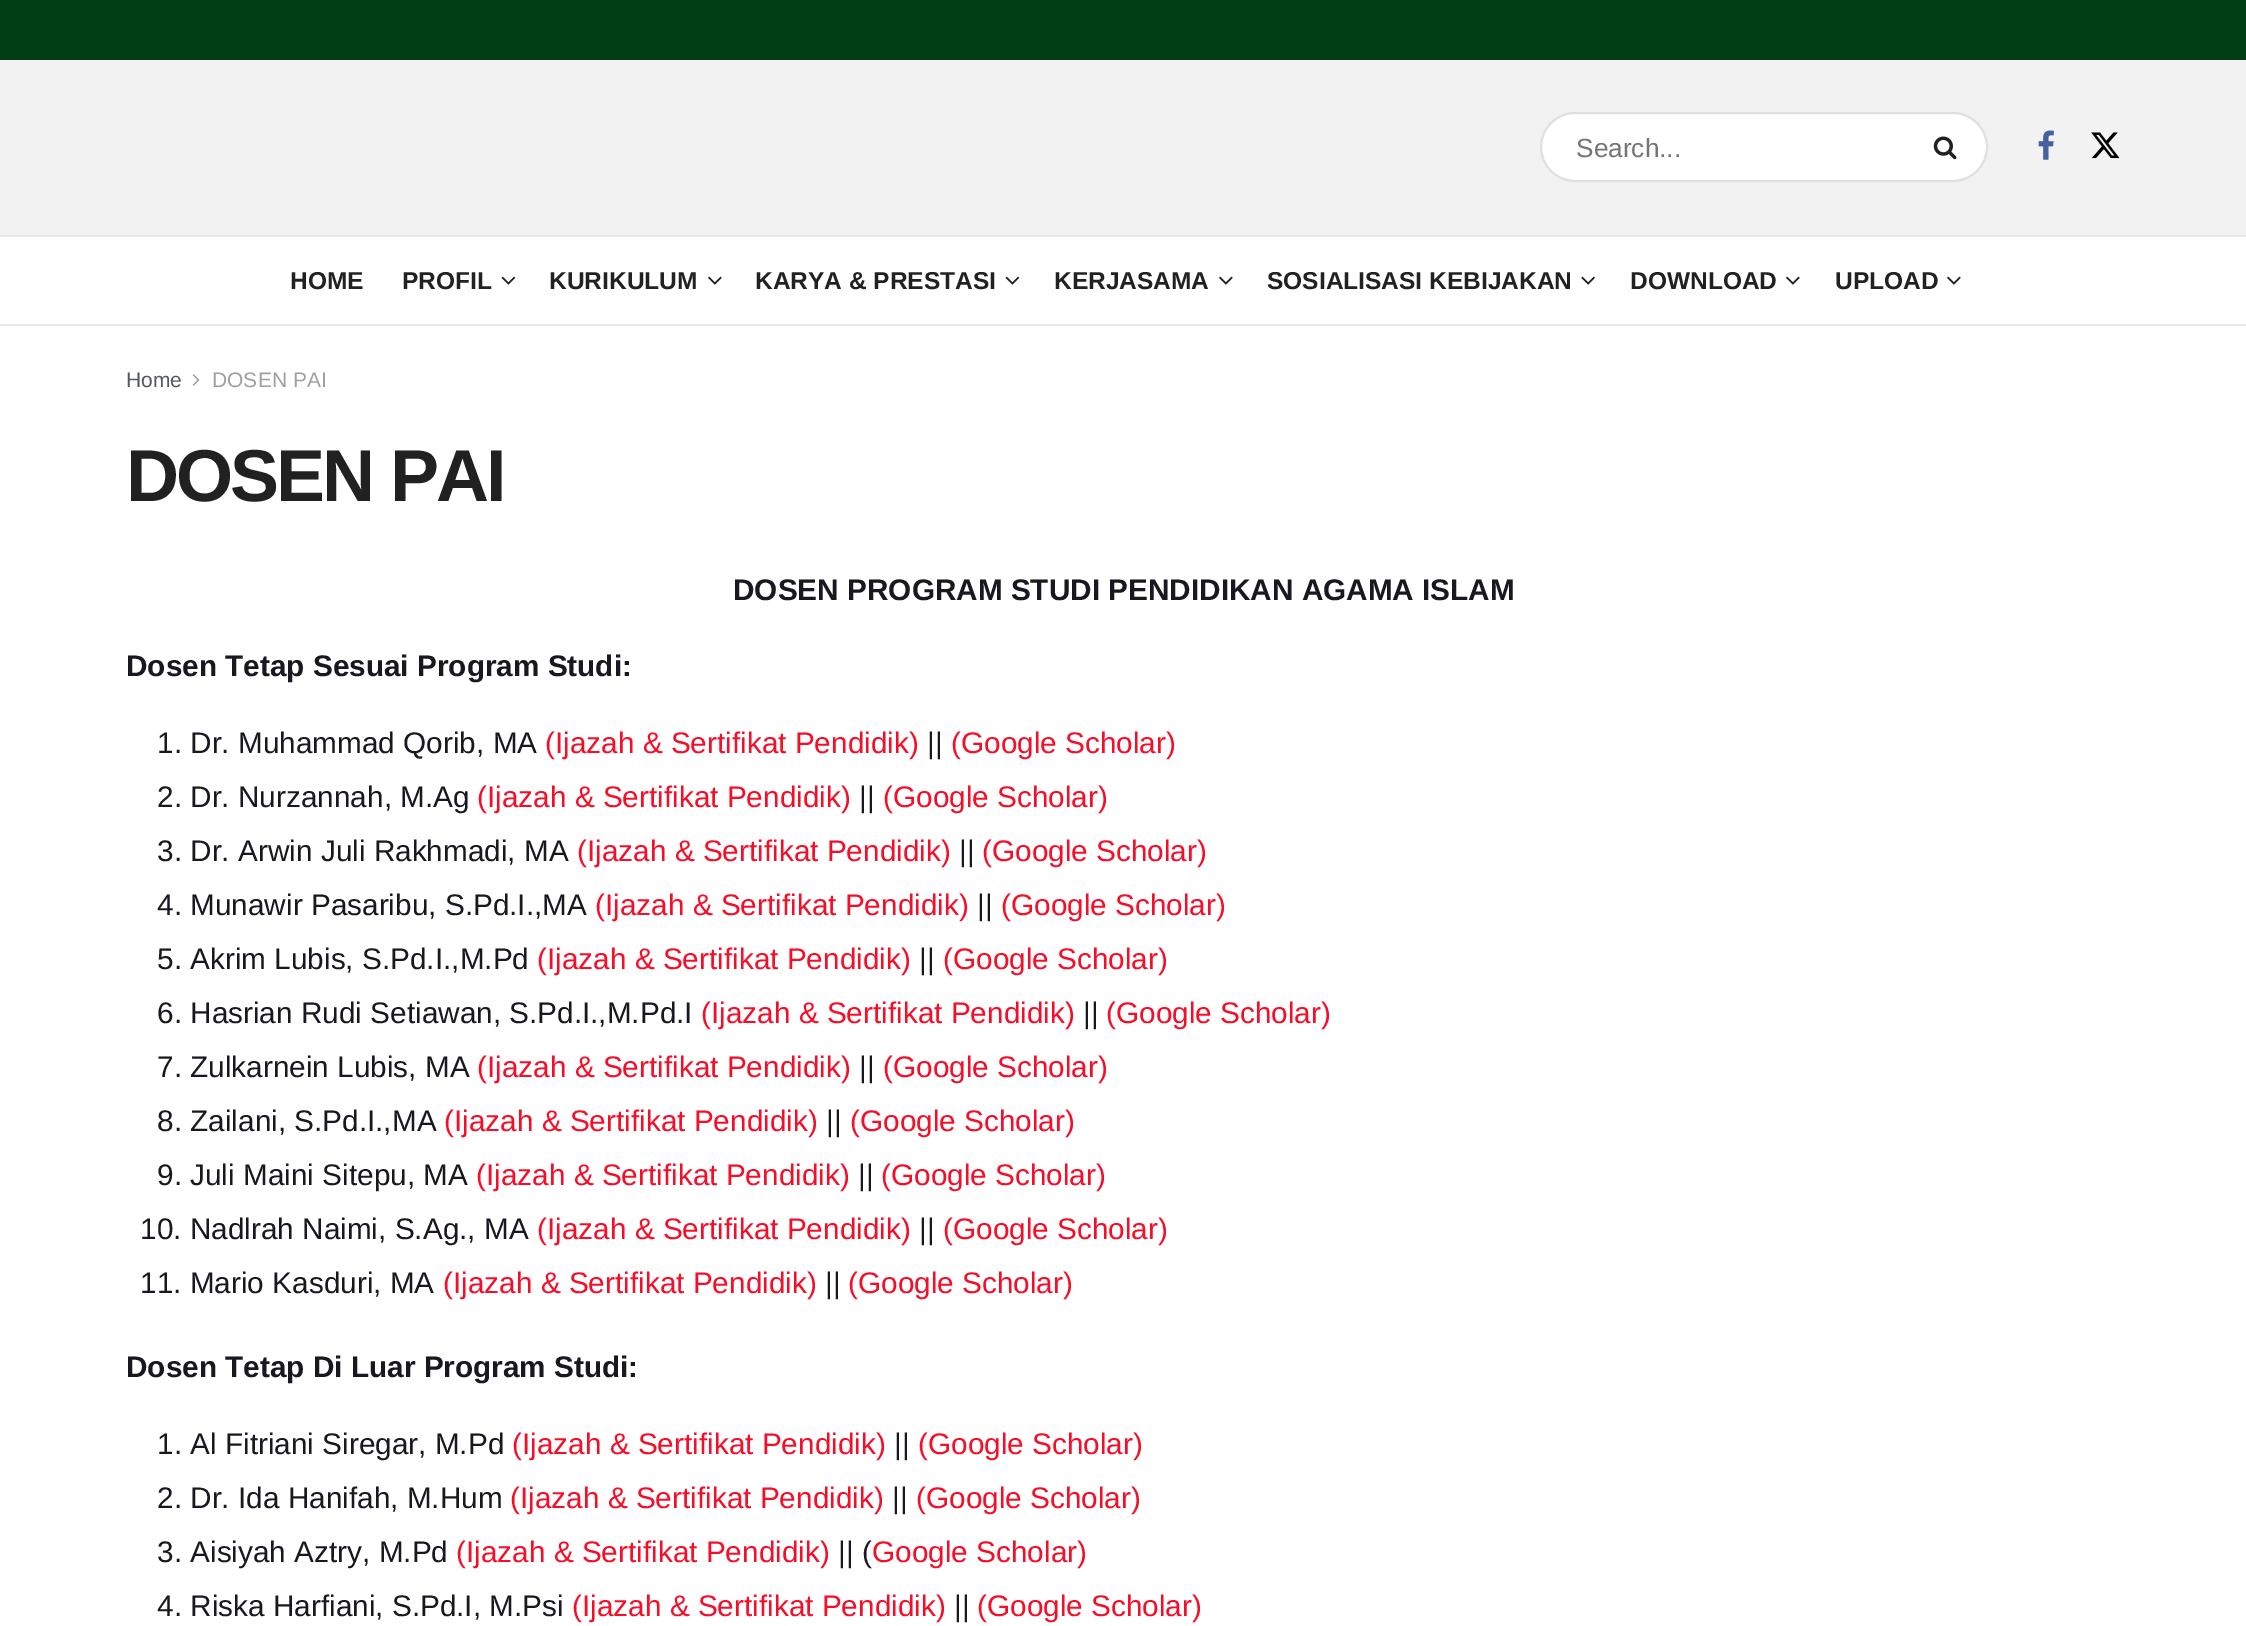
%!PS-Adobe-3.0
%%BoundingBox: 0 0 2246 1626
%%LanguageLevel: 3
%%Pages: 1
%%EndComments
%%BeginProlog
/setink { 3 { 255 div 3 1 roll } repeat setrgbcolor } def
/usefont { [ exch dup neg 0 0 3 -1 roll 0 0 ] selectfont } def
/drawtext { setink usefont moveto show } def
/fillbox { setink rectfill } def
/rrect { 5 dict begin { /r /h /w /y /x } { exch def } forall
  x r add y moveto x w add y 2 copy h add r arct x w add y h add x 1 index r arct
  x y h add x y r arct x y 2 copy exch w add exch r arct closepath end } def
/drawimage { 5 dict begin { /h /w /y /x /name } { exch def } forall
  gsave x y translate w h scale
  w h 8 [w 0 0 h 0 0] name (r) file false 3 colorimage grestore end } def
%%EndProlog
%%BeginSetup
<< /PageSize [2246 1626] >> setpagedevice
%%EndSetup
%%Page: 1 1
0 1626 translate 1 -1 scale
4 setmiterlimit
0 0 2246 1626 255 255 255 fillbox
0 0 2246 60 0 61 18 fillbox
0 60 2246 175 242 242 242 fillbox
0 235 2246 2 232 232 232 fillbox
255 255 255 setink
1541 113 446 68 34 rrect gsave fill grestore
224 224 224 setink
2 setlinewidth
stroke
(Search...) 1576 157 /LiberationSans-Regular 26.25 117 117 117 drawtext
(assets/img1.rgb) 1933 136 24 24 drawimage
(assets/img2.rgb) 2038 130 16 30 drawimage
(assets/img3.rgb) 2091 132 29 27 drawimage
0 324 2246 2 232 232 232 fillbox
(HOME) 290 289 /LiberationSans-Bold 24.5 33 33 33 drawtext
(PROFIL) 402 289 /LiberationSans-Bold 24.5 33 33 33 drawtext
(assets/img4.rgb) 501 276 15 9 drawimage
(KURIKULUM) 549 289 /LiberationSans-Bold 24.5 33 33 33 drawtext
(assets/img5.rgb) 708 276 14 9 drawimage
(KARYA & PRESTASI) 755 289 /LiberationSans-Bold 24.5 33 33 33 drawtext
(assets/img4.rgb) 1005 276 15 9 drawimage
(KERJASAMA) 1054 289 /LiberationSans-Bold 24.5 33 33 33 drawtext
(assets/img5.rgb) 1219 276 14 9 drawimage
(SOSIALISASI KEBIJAKAN) 1267 289 /LiberationSans-Bold 24.5 33 33 33 drawtext
(assets/img6.rgb) 1581 276 14 9 drawimage
(DOWNLOAD) 1630 289 /LiberationSans-Bold 24.5 33 33 33 drawtext
(assets/img5.rgb) 1786 276 14 9 drawimage
(UPLOAD) 1835 289 /LiberationSans-Bold 24.5 33 33 33 drawtext
(assets/img5.rgb) 1947 276 14 9 drawimage
(Home) 126 387 /LiberationSans-Regular 21 83 88 92 drawtext
(assets/img7.rgb) 192 374 8 12 drawimage
(DOSEN PAI) 212 387 /LiberationSans-Regular 21 160 160 160 drawtext
/LiberationSans-Bold 73.5 usefont
33 33 33 setink
126 501 moveto -3 0 (DOSEN PAI) ashow
(DOSEN PROGRAM STUDI PENDIDIKAN AGAMA ISLAM) 733 600 /LiberationSans-Bold 29.75 25 24 32 drawtext
(Dosen Tetap Sesuai Program Studi:) 126 676 /LiberationSans-Bold 29.75 25 24 32 drawtext
(1. Dr. Muhammad Qorib, MA) 157 753 /LiberationSans-Regular 29.75 25 24 32 drawtext
(\(Ijazah & Sertifikat Pendidik\)) 545 753 /LiberationSans-Regular 29.75 247 13 40 drawtext
(||) 927 753 /LiberationSans-Regular 29.75 25 24 32 drawtext
(\(Google Scholar\)) 951 753 /LiberationSans-Regular 29.75 247 13 40 drawtext
(2. Dr. Nurzannah, M.Ag) 157 807 /LiberationSans-Regular 29.75 25 24 32 drawtext
(\(Ijazah & Sertifikat Pendidik\)) 477 807 /LiberationSans-Regular 29.75 247 13 40 drawtext
(||) 859 807 /LiberationSans-Regular 29.75 25 24 32 drawtext
(\(Google Scholar\)) 883 807 /LiberationSans-Regular 29.75 247 13 40 drawtext
(3. Dr. Arwin Juli Rakhmadi, MA) 157 861 /LiberationSans-Regular 29.75 25 24 32 drawtext
(\(Ijazah & Sertifikat Pendidik\)) 577 861 /LiberationSans-Regular 29.75 247 13 40 drawtext
(||) 959 861 /LiberationSans-Regular 29.75 25 24 32 drawtext
(\(Google Scholar\)) 982 861 /LiberationSans-Regular 29.75 247 13 40 drawtext
(4. Munawir Pasaribu, S.Pd.I.,MA) 157 915 /LiberationSans-Regular 29.75 25 24 32 drawtext
(\(Ijazah & Sertifikat Pendidik\)) 595 915 /LiberationSans-Regular 29.75 247 13 40 drawtext
(||) 977 915 /LiberationSans-Regular 29.75 25 24 32 drawtext
(\(Google Scholar\)) 1001 915 /LiberationSans-Regular 29.75 247 13 40 drawtext
(5. Akrim Lubis, S.Pd.I.,M.Pd) 157 969 /LiberationSans-Regular 29.75 25 24 32 drawtext
(\(Ijazah & Sertifikat Pendidik\)) 537 969 /LiberationSans-Regular 29.75 247 13 40 drawtext
(||) 919 969 /LiberationSans-Regular 29.75 25 24 32 drawtext
(\(Google Scholar\)) 943 969 /LiberationSans-Regular 29.75 247 13 40 drawtext
(6. Hasrian Rudi Setiawan, S.Pd.I.,M.Pd.I) 157 1023 /LiberationSans-Regular 29.75 25 24 32 drawtext
(\(Ijazah & Sertifikat Pendidik\)) 701 1023 /LiberationSans-Regular 29.75 247 13 40 drawtext
(||) 1083 1023 /LiberationSans-Regular 29.75 25 24 32 drawtext
(\(Google Scholar\)) 1106 1023 /LiberationSans-Regular 29.75 247 13 40 drawtext
(7. Zulkarnein Lubis, MA) 157 1077 /LiberationSans-Regular 29.75 25 24 32 drawtext
(\(Ijazah & Sertifikat Pendidik\)) 477 1077 /LiberationSans-Regular 29.75 247 13 40 drawtext
(||) 859 1077 /LiberationSans-Regular 29.75 25 24 32 drawtext
(\(Google Scholar\)) 883 1077 /LiberationSans-Regular 29.75 247 13 40 drawtext
(8. Zailani, S.Pd.I.,MA) 157 1131 /LiberationSans-Regular 29.75 25 24 32 drawtext
(\(Ijazah & Sertifikat Pendidik\)) 444 1131 /LiberationSans-Regular 29.75 247 13 40 drawtext
(||) 826 1131 /LiberationSans-Regular 29.75 25 24 32 drawtext
(\(Google Scholar\)) 850 1131 /LiberationSans-Regular 29.75 247 13 40 drawtext
(9. Juli Maini Sitepu, MA) 157 1185 /LiberationSans-Regular 29.75 25 24 32 drawtext
(\(Ijazah & Sertifikat Pendidik\)) 476 1185 /LiberationSans-Regular 29.75 247 13 40 drawtext
(||) 858 1185 /LiberationSans-Regular 29.75 25 24 32 drawtext
(\(Google Scholar\)) 881 1185 /LiberationSans-Regular 29.75 247 13 40 drawtext
(10. Nadlrah Naimi, S.Ag., MA) 140 1239 /LiberationSans-Regular 29.75 25 24 32 drawtext
(\(Ijazah & Sertifikat Pendidik\)) 537 1239 /LiberationSans-Regular 29.75 247 13 40 drawtext
(||) 919 1239 /LiberationSans-Regular 29.75 25 24 32 drawtext
(\(Google Scholar\)) 943 1239 /LiberationSans-Regular 29.75 247 13 40 drawtext
(11. Mario Kasduri, MA) 140 1293 /LiberationSans-Regular 29.75 25 24 32 drawtext
(\(Ijazah & Sertifikat Pendidik\)) 443 1293 /LiberationSans-Regular 29.75 247 13 40 drawtext
(||) 825 1293 /LiberationSans-Regular 29.75 25 24 32 drawtext
(\(Google Scholar\)) 848 1293 /LiberationSans-Regular 29.75 247 13 40 drawtext
(Dosen Tetap Di Luar Program Studi:) 126 1377 /LiberationSans-Bold 29.75 25 24 32 drawtext
(1. Al Fitriani Siregar, M.Pd) 157 1454 /LiberationSans-Regular 29.75 25 24 32 drawtext
(\(Ijazah & Sertifikat Pendidik\)) 512 1454 /LiberationSans-Regular 29.75 247 13 40 drawtext
(||) 894 1454 /LiberationSans-Regular 29.75 25 24 32 drawtext
(\(Google Scholar\)) 918 1454 /LiberationSans-Regular 29.75 247 13 40 drawtext
(2. Dr. Ida Hanifah, M.Hum) 157 1508 /LiberationSans-Regular 29.75 25 24 32 drawtext
(\(Ijazah & Sertifikat Pendidik\)) 510 1508 /LiberationSans-Regular 29.75 247 13 40 drawtext
(||) 892 1508 /LiberationSans-Regular 29.75 25 24 32 drawtext
(\(Google Scholar\)) 916 1508 /LiberationSans-Regular 29.75 247 13 40 drawtext
(3. Aisiyah Aztry, M.Pd) 157 1562 /LiberationSans-Regular 29.75 25 24 32 drawtext
(\(Ijazah & Sertifikat Pendidik\)) 456 1562 /LiberationSans-Regular 29.75 247 13 40 drawtext
(|| \() 838 1562 /LiberationSans-Regular 29.75 25 24 32 drawtext
(Google Scholar\)) 872 1562 /LiberationSans-Regular 29.75 247 13 40 drawtext
(4. Riska Harfiani, S.Pd.I, M.Psi) 157 1616 /LiberationSans-Regular 29.75 25 24 32 drawtext
(\(Ijazah & Sertifikat Pendidik\)) 572 1616 /LiberationSans-Regular 29.75 247 13 40 drawtext
(||) 954 1616 /LiberationSans-Regular 29.75 25 24 32 drawtext
(\(Google Scholar\)) 977 1616 /LiberationSans-Regular 29.75 247 13 40 drawtext
showpage
%%EOF
